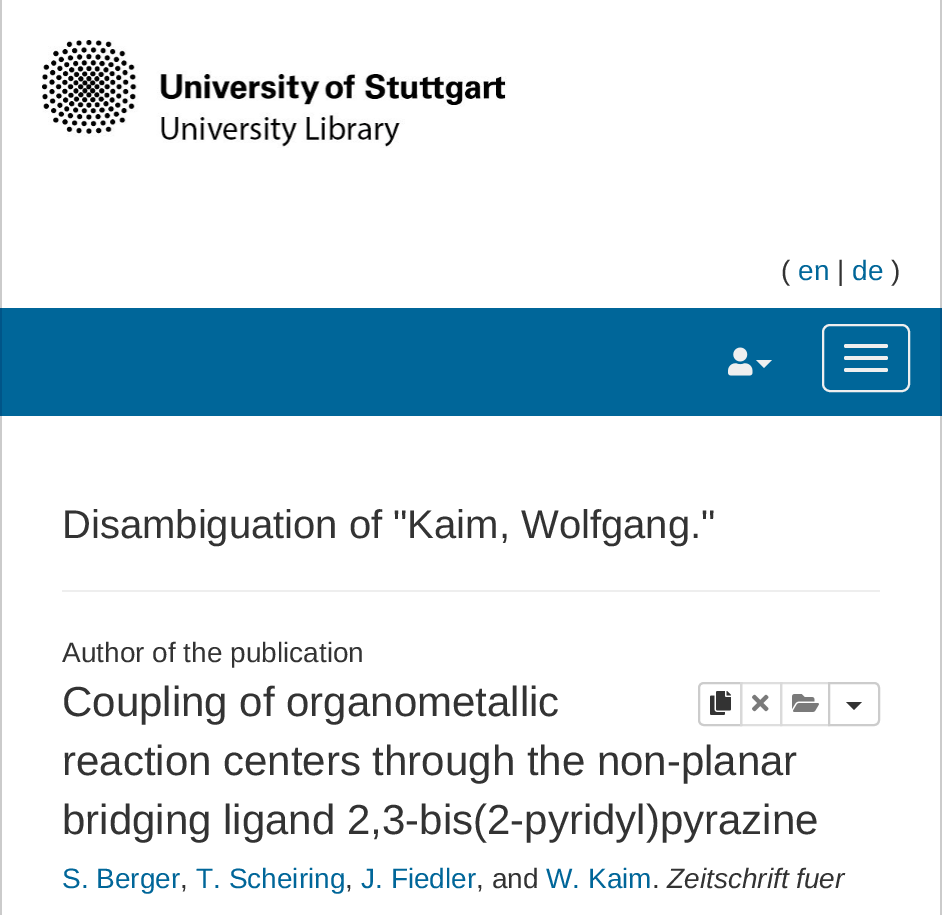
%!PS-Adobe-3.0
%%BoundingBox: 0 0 942 915
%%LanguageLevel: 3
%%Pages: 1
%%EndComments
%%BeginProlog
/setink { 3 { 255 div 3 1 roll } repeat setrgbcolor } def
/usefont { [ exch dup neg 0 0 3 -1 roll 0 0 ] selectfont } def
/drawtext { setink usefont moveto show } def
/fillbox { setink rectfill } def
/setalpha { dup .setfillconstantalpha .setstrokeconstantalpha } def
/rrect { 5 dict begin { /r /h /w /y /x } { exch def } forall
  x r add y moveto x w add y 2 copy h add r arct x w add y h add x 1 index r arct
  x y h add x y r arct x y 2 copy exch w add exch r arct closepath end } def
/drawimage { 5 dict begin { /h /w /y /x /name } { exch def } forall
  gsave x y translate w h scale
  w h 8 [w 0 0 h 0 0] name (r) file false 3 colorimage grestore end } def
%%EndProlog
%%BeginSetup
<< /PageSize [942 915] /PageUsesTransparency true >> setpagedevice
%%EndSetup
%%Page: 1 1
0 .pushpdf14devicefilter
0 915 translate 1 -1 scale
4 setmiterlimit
0 0 942 915 255 255 255 fillbox
940 0 2 308 203 203 203 fillbox
0 0 2 308 203 203 203 fillbox
(assets/img1.rgb) 42 40 465 108 drawimage
(\() 781 280 /LiberationSans-Regular 28 51 51 51 drawtext
(en) 798 280 /LiberationSans-Regular 28 0 102 153 drawtext
(|) 837 280 /LiberationSans-Regular 28 51 51 51 drawtext
(de) 852 280 /LiberationSans-Regular 28 0 102 153 drawtext
(\)) 891 280 /LiberationSans-Regular 28 51 51 51 drawtext
2 308 938 108 0 102 153 fillbox
940 308 2 108 0 85 136 fillbox
0 308 2 108 0 85 136 fillbox
(assets/img2.rgb) 728 347 25 29 drawimage
239 239 239 setink
756 360 moveto 772 360 lineto 764 368 lineto closepath fill
2 setlinewidth
823 325 86 66 7 rrect stroke
844 344 44 4 2 rrect fill
844 356 44 4 2 rrect fill
844 368 44 4 2 rrect fill
940 416 2 499 203 203 203 fillbox
0 416 2 499 203 203 203 fillbox
62 590 818 2 238 238 238 fillbox
(Disambiguation of "Kaim, Wolfgang.") 62 538 /LiberationSans-Regular 40 51 51 51 drawtext
(Author of the publication) 62 662 /LiberationSans-Regular 28 51 51 51 drawtext
(Coupling of organometallic) 62 716 /LiberationSans-Regular 42 51 51 51 drawtext
204 204 204 setink
704 683 moveto 741 683 lineto 741 725 lineto 704 725 lineto 701 725 699 723 699 720 curveto 699 688 lineto 699 685 701 683 704 683 curveto closepath stroke
(assets/img3.rgb) 710 691 21 24 drawimage
0.65 setalpha
740 682 2 44 255 255 255 fillbox
204 204 204 setink
741 683 40 42 rectstroke
1 setalpha
(assets/img4.rgb) 752 694 17 18 drawimage
0.65 setalpha
780 682 2 44 255 255 255 fillbox
204 204 204 setink
781 683 48 42 rectstroke
1 setalpha
(assets/img5.rgb) 792 694 27 18 drawimage
255 255 255 setink
829 683 moveto 874 683 lineto 877 683 879 685 879 688 curveto 879 720 lineto 879 723 877 725 874 725 curveto 829 725 lineto closepath gsave fill grestore
204 204 204 setink
stroke
51 51 51 setink
846 702 moveto 862 702 lineto 854 710 lineto closepath fill
(reaction centers through the non-planar) 62 775 /LiberationSans-Regular 42 51 51 51 drawtext
(bridging ligand 2,3-bis\(2-pyridyl\)pyrazine) 62 834 /LiberationSans-Regular 42 51 51 51 drawtext
(S. Berger) 62 888 /LiberationSans-Regular 28 0 102 153 drawtext
(,) 180 888 /LiberationSans-Regular 28 51 51 51 drawtext
(T. Scheiring) 196 888 /LiberationSans-Regular 28 0 102 153 drawtext
(,) 345 888 /LiberationSans-Regular 28 51 51 51 drawtext
(J. Fiedler) 361 888 /LiberationSans-Regular 28 0 102 153 drawtext
(, and) 476 888 /LiberationSans-Regular 28 51 51 51 drawtext
(W. Kaim) 546 888 /LiberationSans-Regular 28 0 102 153 drawtext
(.) 652 888 /LiberationSans-Regular 28 51 51 51 drawtext
(Zeitschrift fuer) 667 888 /LiberationSans-Italic 28 51 51 51 drawtext
.poppdf14devicefilter showpage
%%EOF
